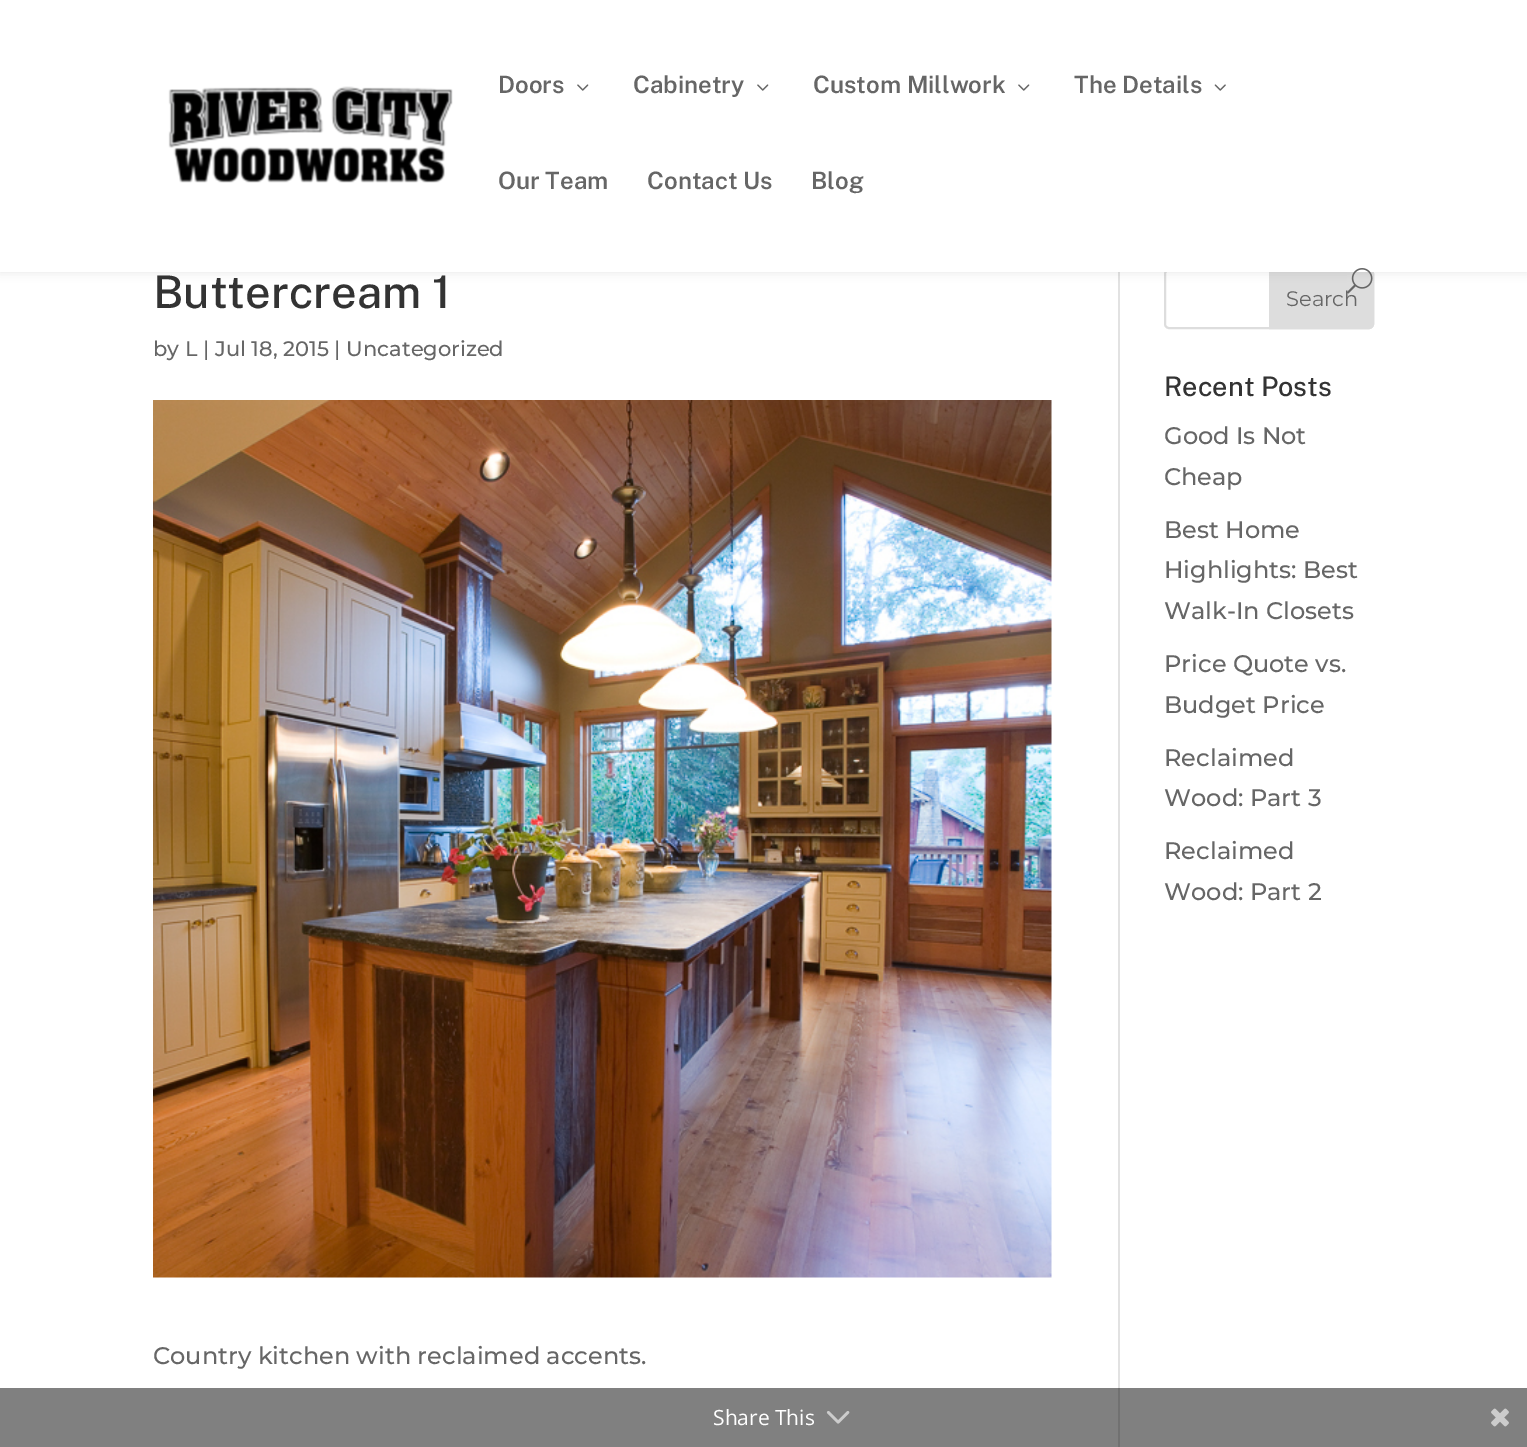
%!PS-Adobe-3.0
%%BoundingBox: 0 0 1527 1447
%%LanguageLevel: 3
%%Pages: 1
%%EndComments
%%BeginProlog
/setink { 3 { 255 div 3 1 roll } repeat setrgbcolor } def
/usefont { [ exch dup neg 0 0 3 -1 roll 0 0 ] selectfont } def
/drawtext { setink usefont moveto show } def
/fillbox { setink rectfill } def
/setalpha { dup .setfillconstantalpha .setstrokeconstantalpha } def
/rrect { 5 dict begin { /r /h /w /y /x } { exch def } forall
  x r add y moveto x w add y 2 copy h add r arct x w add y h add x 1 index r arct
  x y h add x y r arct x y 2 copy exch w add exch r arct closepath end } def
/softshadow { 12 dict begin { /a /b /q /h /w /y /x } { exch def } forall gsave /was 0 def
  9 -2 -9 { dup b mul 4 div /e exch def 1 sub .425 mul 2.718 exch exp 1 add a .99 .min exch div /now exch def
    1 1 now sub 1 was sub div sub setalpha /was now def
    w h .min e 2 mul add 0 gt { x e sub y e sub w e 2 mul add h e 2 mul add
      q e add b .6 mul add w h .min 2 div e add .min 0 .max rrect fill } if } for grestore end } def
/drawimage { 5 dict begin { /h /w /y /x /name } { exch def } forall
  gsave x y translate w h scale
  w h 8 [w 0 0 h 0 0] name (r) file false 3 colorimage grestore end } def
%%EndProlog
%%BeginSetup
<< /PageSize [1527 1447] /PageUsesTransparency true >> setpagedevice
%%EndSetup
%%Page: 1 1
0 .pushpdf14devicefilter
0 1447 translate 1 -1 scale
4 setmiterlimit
0 0 1527 1447 255 255 255 fillbox
0 1388 1527 59 128 128 128 fillbox
1118 272 2 1116 226 226 226 fillbox
221 221 221 setink
2 setlinewidth
1165 270 208 58 4 rrect stroke
1270 270 moveto 1369 270 lineto 1371 270 1373 272 1373 274 curveto 1373 324 lineto 1373 326 1371 328 1369 328 curveto 1270 328 lineto closepath gsave fill grestore
stroke
0 0 0 setink
0 0 1527 272 0 5 0.1 softshadow
0 0 1527 272 255 255 255 fillbox
(assets/img1.rgb) 168 86 285 97 drawimage
(Doors) 498 93 /PublicSans-SemiBold 24 102 102 102 drawtext
(assets/img2.rgb) 577 84 12 7 drawimage
(Cabinetry) 633 93 /PublicSans-SemiBold 24 102 102 102 drawtext
(assets/img2.rgb) 757 84 12 7 drawimage
(Custom Millwork) 813 93 /PublicSans-SemiBold 24 102 102 102 drawtext
(assets/img2.rgb) 1018 84 12 7 drawimage
(The Details) 1074 93 /PublicSans-SemiBold 24 102 102 102 drawtext
(assets/img3.rgb) 1214 84 12 7 drawimage
(Our Team) 498 189 /PublicSans-SemiBold 24 102 102 102 drawtext
(Contact Us) 647 189 /PublicSans-SemiBold 24 102 102 102 drawtext
(Blog) 811 189 /PublicSans-SemiBold 24 102 102 102 drawtext
(Search) 1286 306 /Montserrat-Regular 21 102 102 102 drawtext
(assets/img4.rgb) 1347 268 26 26 drawimage
1118 1388 2 59 113 113 113 fillbox
(Buttercream 1) 153 308 /PublicSans-Medium 45 51 51 51 drawtext
(by L | Jul 18, 2015 | Uncategorized) 153 356 /Montserrat-Medium 21 102 102 102 drawtext
(assets/img5.rgb) 153 400 899 878 drawimage
(Country kitchen with reclaimed accents.) 153 1364 /Montserrat-Medium 24 102 102 102 drawtext
(Recent Posts) 1164 396 /PublicSans-Medium 27 51 51 51 drawtext
(Good Is Not) 1164 444 /Montserrat-Medium 24 102 102 102 drawtext
(Cheap) 1164 485 /Montserrat-Medium 24 102 102 102 drawtext
(Best Home) 1164 538 /Montserrat-Medium 24 102 102 102 drawtext
(Highlights: Best) 1164 578 /Montserrat-Medium 24 102 102 102 drawtext
(Walk-In Closets) 1164 619 /Montserrat-Medium 24 102 102 102 drawtext
(Price Quote vs.) 1164 672 /Montserrat-Medium 24 102 102 102 drawtext
(Budget Price) 1164 713 /Montserrat-Medium 24 102 102 102 drawtext
(Reclaimed) 1164 766 /Montserrat-Medium 24 102 102 102 drawtext
(Wood: Part 3) 1164 806 /Montserrat-Medium 24 102 102 102 drawtext
(Reclaimed) 1164 859 /Montserrat-Medium 24 102 102 102 drawtext
(Wood: Part 2) 1164 900 /Montserrat-Medium 24 102 102 102 drawtext
(Share This) 713 1425 /OpenSans-Regular 21 255 255 255 drawtext
(assets/img6.rgb) 826 1411 24 13 drawimage
(assets/img7.rgb) 1491 1408 18 19 drawimage
.poppdf14devicefilter showpage
%%EOF
